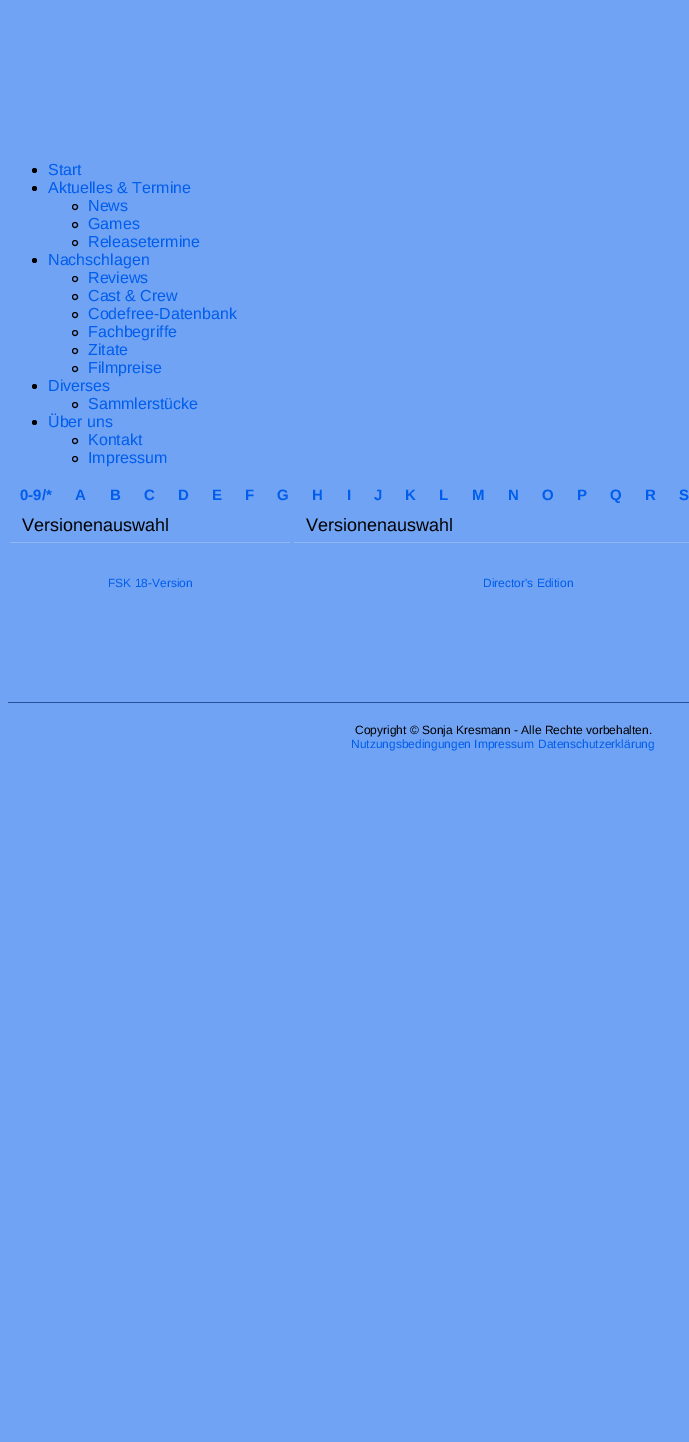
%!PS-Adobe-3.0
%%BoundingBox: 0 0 689 1442
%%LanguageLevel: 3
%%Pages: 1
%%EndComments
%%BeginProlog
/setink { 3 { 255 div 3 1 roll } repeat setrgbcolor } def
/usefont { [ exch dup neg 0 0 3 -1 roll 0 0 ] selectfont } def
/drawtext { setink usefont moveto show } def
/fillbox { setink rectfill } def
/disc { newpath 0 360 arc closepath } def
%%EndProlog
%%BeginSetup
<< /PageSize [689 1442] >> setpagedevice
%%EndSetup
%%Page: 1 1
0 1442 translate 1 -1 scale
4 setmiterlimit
0 0 689 1442 112 163 244 fillbox
0 0 0 setink
34.5 170.5 2.5 disc fill
(Start) 48 175 /LiberationSans-Regular 16 0 93 237 drawtext
0 0 0 setink
34.5 188.5 2.5 disc fill
(Aktuelles & Termine) 48 193 /LiberationSans-Regular 16 0 93 237 drawtext
0 0 0 setink
75 207 2.5 disc stroke
(News) 88 211 /LiberationSans-Regular 16 0 93 237 drawtext
0 0 0 setink
75 225 2.5 disc stroke
(Games) 88 229 /LiberationSans-Regular 16 0 93 237 drawtext
0 0 0 setink
75 243 2.5 disc stroke
(Releasetermine) 88 247 /LiberationSans-Regular 16 0 93 237 drawtext
0 0 0 setink
34.5 260.5 2.5 disc fill
(Nachschlagen) 48 265 /LiberationSans-Regular 16 0 93 237 drawtext
0 0 0 setink
75 279 2.5 disc stroke
(Reviews) 88 283 /LiberationSans-Regular 16 0 93 237 drawtext
0 0 0 setink
75 297 2.5 disc stroke
(Cast & Crew) 88 301 /LiberationSans-Regular 16 0 93 237 drawtext
0 0 0 setink
75 315 2.5 disc stroke
(Codefree-Datenbank) 88 319 /LiberationSans-Regular 16 0 93 237 drawtext
0 0 0 setink
75 333 2.5 disc stroke
(Fachbegriffe) 88 337 /LiberationSans-Regular 16 0 93 237 drawtext
0 0 0 setink
75 351 2.5 disc stroke
(Zitate) 88 355 /LiberationSans-Regular 16 0 93 237 drawtext
0 0 0 setink
75 369 2.5 disc stroke
(Filmpreise) 88 373 /LiberationSans-Regular 16 0 93 237 drawtext
0 0 0 setink
34.5 386.5 2.5 disc fill
(Diverses) 48 391 /LiberationSans-Regular 16 0 93 237 drawtext
0 0 0 setink
75 405 2.5 disc stroke
(Sammlerstücke) 88 409 /LiberationSans-Regular 16 0 93 237 drawtext
0 0 0 setink
34.5 422.5 2.5 disc fill
(Über uns) 48 427 /LiberationSans-Regular 16 0 93 237 drawtext
0 0 0 setink
75 441 2.5 disc stroke
(Kontakt) 88 445 /LiberationSans-Regular 16 0 93 237 drawtext
0 0 0 setink
75 459 2.5 disc stroke
(Impressum) 88 463 /LiberationSans-Regular 16 0 93 237 drawtext
(0-9/*) 20 500 /LiberationSans-Bold 15 0 93 237 drawtext
(A) 75 500 /LiberationSans-Bold 15 0 93 237 drawtext
(B) 110 500 /LiberationSans-Bold 15 0 93 237 drawtext
(C) 144 500 /LiberationSans-Bold 15 0 93 237 drawtext
(D) 178 500 /LiberationSans-Bold 15 0 93 237 drawtext
(E) 212 500 /LiberationSans-Bold 15 0 93 237 drawtext
(F) 245 500 /LiberationSans-Bold 15 0 93 237 drawtext
(G) 277 500 /LiberationSans-Bold 15 0 93 237 drawtext
(H) 312 500 /LiberationSans-Bold 15 0 93 237 drawtext
(I) 347 500 /LiberationSans-Bold 15 0 93 237 drawtext
(J) 374 500 /LiberationSans-Bold 15 0 93 237 drawtext
(K) 405 500 /LiberationSans-Bold 15 0 93 237 drawtext
(L) 439 500 /LiberationSans-Bold 15 0 93 237 drawtext
(M) 472 500 /LiberationSans-Bold 15 0 93 237 drawtext
(N) 508 500 /LiberationSans-Bold 15 0 93 237 drawtext
(O) 542 500 /LiberationSans-Bold 15 0 93 237 drawtext
(P) 577 500 /LiberationSans-Bold 15 0 93 237 drawtext
(Q) 610 500 /LiberationSans-Bold 15 0 93 237 drawtext
(R) 645 500 /LiberationSans-Bold 15 0 93 237 drawtext
(S) 679 500 /LiberationSans-Bold 15 0 93 237 drawtext
10 542 280 1 145 183 246 fillbox
(Versionenauswahl) 22 531 /LiberationSans-Regular 18 0 0 0 drawtext
(FSK 18-Version) 108 587 /LiberationSans-Regular 12 0 93 237 drawtext
294 542 395 1 145 183 246 fillbox
(Versionenauswahl) 306 531 /LiberationSans-Regular 18 0 0 0 drawtext
(Director's Edition) 483 587 /LiberationSans-Regular 12 0 93 237 drawtext
8 702 681 1 38 80 154 fillbox
(Copyright © Sonja Kresmann - Alle Rechte vorbehalten.) 355 734 /LiberationSans-Regular 12 0 0 0 drawtext
(Nutzungsbedingungen Impressum) 351 748 /LiberationSans-Regular 12 0 93 237 drawtext
(Datenschutzerklärung) 538 748 /LiberationSans-Regular 12 0 93 237 drawtext
showpage
%%EOF
